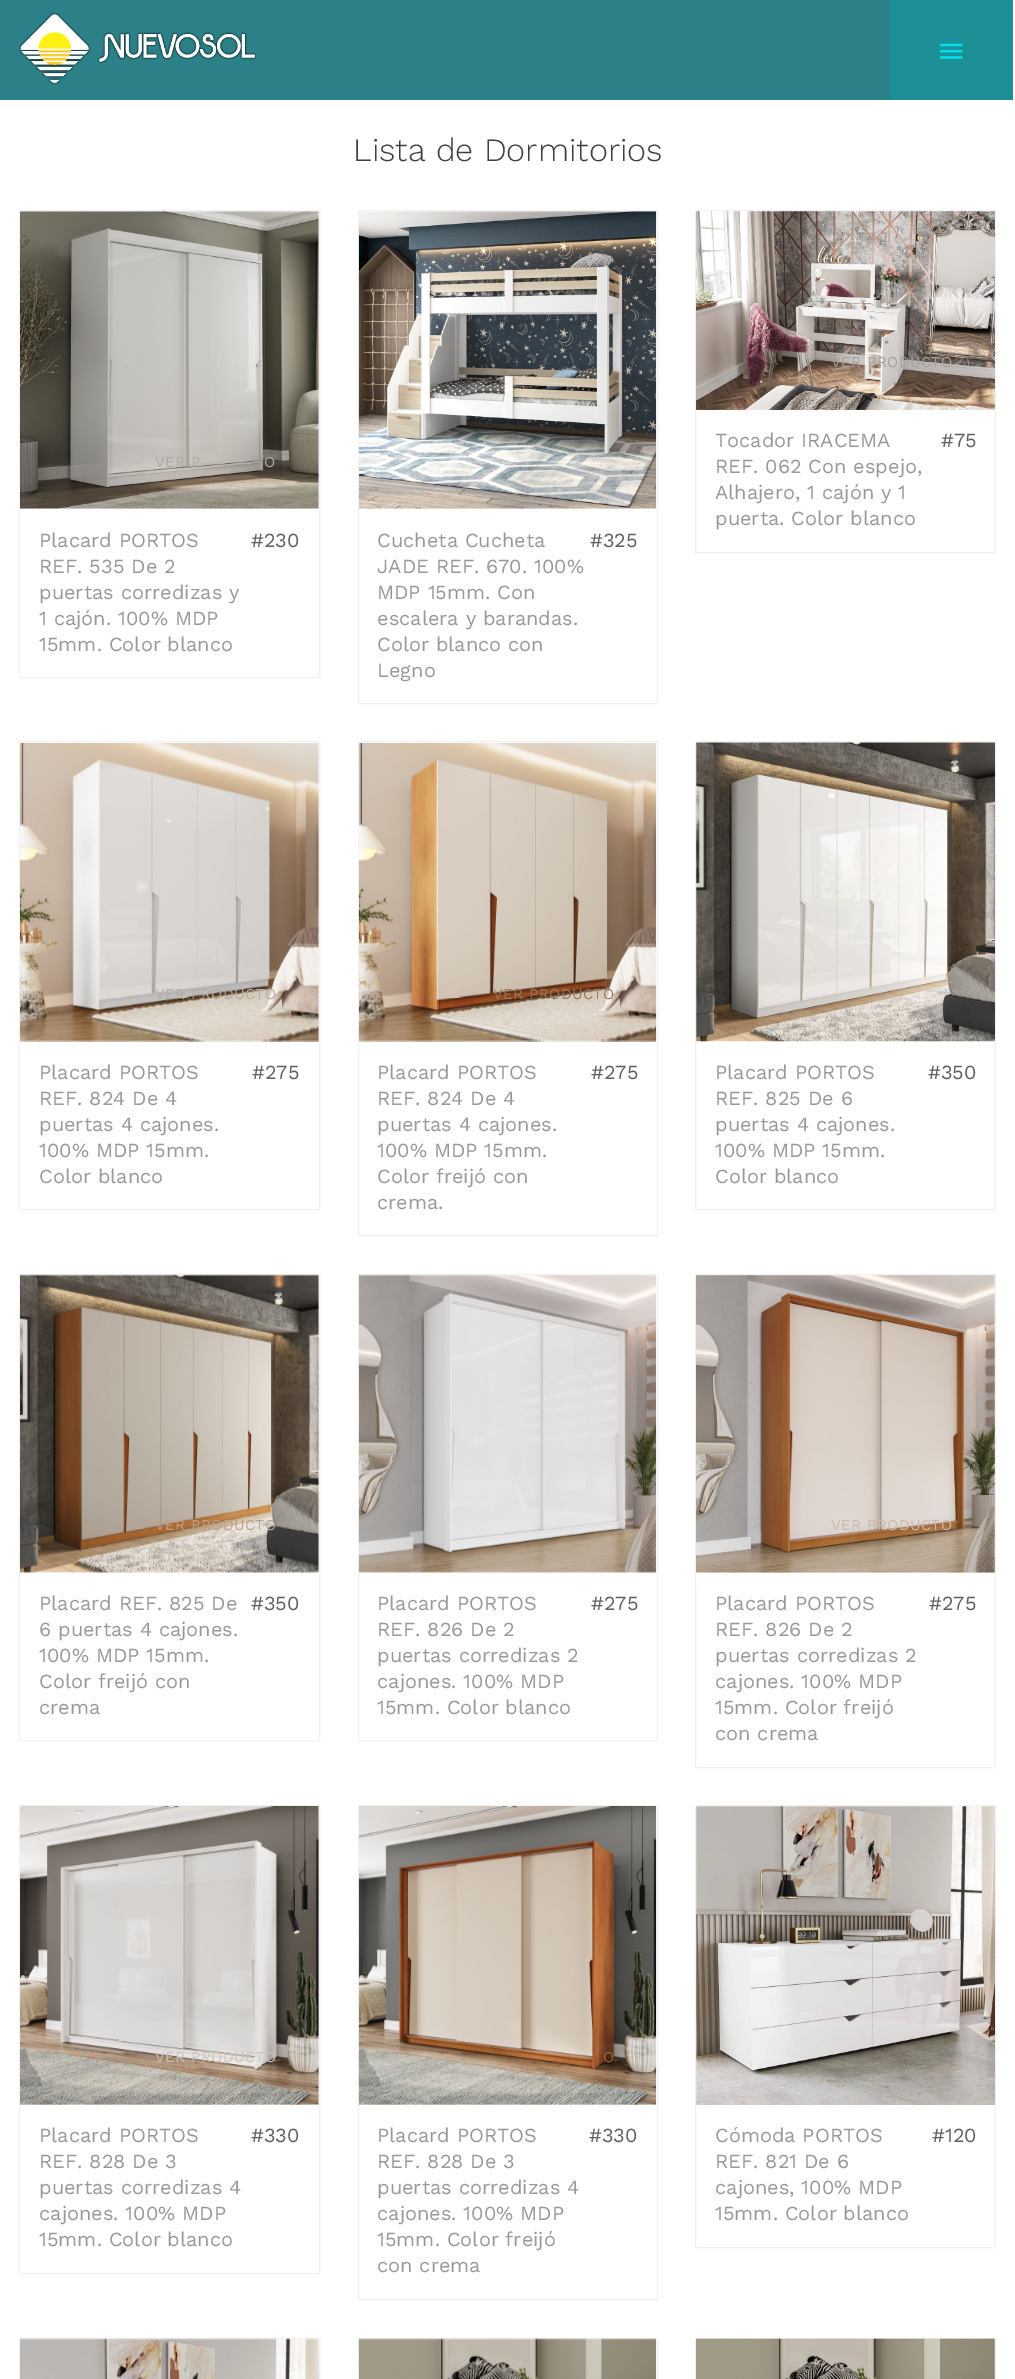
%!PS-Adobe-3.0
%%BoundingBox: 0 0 1015 2379
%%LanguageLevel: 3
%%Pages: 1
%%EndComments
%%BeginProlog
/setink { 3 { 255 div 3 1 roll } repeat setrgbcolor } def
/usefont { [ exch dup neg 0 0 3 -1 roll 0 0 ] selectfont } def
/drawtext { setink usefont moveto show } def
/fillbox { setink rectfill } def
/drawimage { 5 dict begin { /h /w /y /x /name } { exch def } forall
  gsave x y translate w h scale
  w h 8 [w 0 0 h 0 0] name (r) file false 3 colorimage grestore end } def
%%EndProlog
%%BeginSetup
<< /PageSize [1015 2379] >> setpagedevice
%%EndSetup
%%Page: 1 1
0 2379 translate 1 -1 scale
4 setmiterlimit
0 0 1015 2379 255 255 255 fillbox
0 0 890 100 44 129 136 fillbox
(assets/img1.rgb) 19 12 238 72 drawimage
890 0 123 100 28 143 151 fillbox
(assets/img2.rgb) 940 43 23 16 drawimage
(Lista de Dormitorios) 353 161 /WorkSans-Light 32.5 64 64 64 drawtext
241 241 241 setink
19.5 210.5 300 467 rectstroke
(assets/img3.rgb) 20 211 299 298 drawimage
/WorkSans-Regular 15 usefont
173 169 163 setink
155 467 moveto 0.4 0 (VER P) ashow
264 467 moveto 0.4 0 (O) ashow
(Placard PORTOS) 39 547 /WorkSans-Regular 20 153 153 153 drawtext
(REF. 535 De 2) 39 573 /WorkSans-Regular 20 153 153 153 drawtext
(puertas corredizas y) 39 599 /WorkSans-Regular 20 153 153 153 drawtext
(1 cajón. 100% MDP) 39 625 /WorkSans-Regular 20 153 153 153 drawtext
(15mm. Color blanco) 39 651 /WorkSans-Regular 20 153 153 153 drawtext
(#230) 251 547 /WorkSans-Regular 20 96 96 96 drawtext
241 241 241 setink
358.5 210.5 299 493 rectstroke
(assets/img4.rgb) 358 211 299 298 drawimage
(Cucheta Cucheta) 377 547 /WorkSans-Regular 20 153 153 153 drawtext
(JADE REF. 670. 100%) 377 573 /WorkSans-Regular 20 153 153 153 drawtext
(MDP 15mm. Con) 377 599 /WorkSans-Regular 20 153 153 153 drawtext
(escalera y barandas.) 377 625 /WorkSans-Regular 20 153 153 153 drawtext
(Color blanco con) 377 651 /WorkSans-Regular 20 153 153 153 drawtext
(Legno) 377 677 /WorkSans-Regular 20 153 153 153 drawtext
(#325) 590 547 /WorkSans-Regular 20 96 96 96 drawtext
241 241 241 setink
695.5 210.5 300 342 rectstroke
(assets/img5.rgb) 696 211 299 199 drawimage
/WorkSans-Regular 15 usefont
168 161 155 setink
831 367 moveto 0.4 0 (VER PRODUCTO) ashow
(Tocador IRACEMA) 715 447 /WorkSans-Regular 20 153 153 153 drawtext
(REF. 062 Con espejo,) 715 473 /WorkSans-Regular 20 153 153 153 drawtext
(Alhajero, 1 cajón y 1) 715 499 /WorkSans-Regular 20 153 153 153 drawtext
(puerta. Color blanco) 715 525 /WorkSans-Regular 20 153 153 153 drawtext
(#75) 941 447 /WorkSans-Regular 20 96 96 96 drawtext
241 241 241 setink
19.5 741.5 300 468 rectstroke
(assets/img6.rgb) 20 743 299 299 drawimage
/WorkSans-Regular 15 usefont
180 171 162 setink
155 999 moveto 0.4 0 (VER PRODUCTO) ashow
(Placard PORTOS) 39 1079 /WorkSans-Regular 20 153 153 153 drawtext
(REF. 824 De 4) 39 1105 /WorkSans-Regular 20 153 153 153 drawtext
(puertas 4 cajones.) 39 1131 /WorkSans-Regular 20 153 153 153 drawtext
(100% MDP 15mm.) 39 1157 /WorkSans-Regular 20 153 153 153 drawtext
(Color blanco) 39 1183 /WorkSans-Regular 20 153 153 153 drawtext
(#275) 252 1079 /WorkSans-Regular 20 96 96 96 drawtext
241 241 241 setink
358.5 741.5 299 494 rectstroke
(assets/img7.rgb) 358 743 299 299 drawimage
/WorkSans-Regular 15 usefont
156 119 94 setink
493 999 moveto 0.4 0 (VER PRODUCTO) ashow
(Placard PORTOS) 377 1079 /WorkSans-Regular 20 153 153 153 drawtext
(REF. 824 De 4) 377 1105 /WorkSans-Regular 20 153 153 153 drawtext
(puertas 4 cajones.) 377 1131 /WorkSans-Regular 20 153 153 153 drawtext
(100% MDP 15mm.) 377 1157 /WorkSans-Regular 20 153 153 153 drawtext
(Color freijó con) 377 1183 /WorkSans-Regular 20 153 153 153 drawtext
(crema.) 377 1209 /WorkSans-Regular 20 153 153 153 drawtext
(#275) 591 1079 /WorkSans-Regular 20 96 96 96 drawtext
241 241 241 setink
695.5 741.5 300 468 rectstroke
(assets/img8.rgb) 696 742 299 300 drawimage
(Placard PORTOS) 715 1079 /WorkSans-Regular 20 153 153 153 drawtext
(REF. 825 De 6) 715 1105 /WorkSans-Regular 20 153 153 153 drawtext
(puertas 4 cajones.) 715 1131 /WorkSans-Regular 20 153 153 153 drawtext
(100% MDP 15mm.) 715 1157 /WorkSans-Regular 20 153 153 153 drawtext
(Color blanco) 715 1183 /WorkSans-Regular 20 153 153 153 drawtext
(#350) 928 1079 /WorkSans-Regular 20 96 96 96 drawtext
241 241 241 setink
19.5 1274.5 300 466 rectstroke
(assets/img9.rgb) 20 1274 299 299 drawimage
/WorkSans-Regular 15 usefont
190 162 135 setink
155 1530 moveto 0.4 0 (VER PRODUCTO) ashow
(Placard REF. 825 De) 39 1610 /WorkSans-Regular 20 153 153 153 drawtext
(6 puertas 4 cajones.) 39 1636 /WorkSans-Regular 20 153 153 153 drawtext
(100% MDP 15mm.) 39 1662 /WorkSans-Regular 20 153 153 153 drawtext
(Color freijó con) 39 1688 /WorkSans-Regular 20 153 153 153 drawtext
(crema) 39 1714 /WorkSans-Regular 20 153 153 153 drawtext
(#350) 251 1610 /WorkSans-Regular 20 96 96 96 drawtext
241 241 241 setink
358.5 1274.5 299 466 rectstroke
(assets/img10.rgb) 358 1274 299 299 drawimage
(Placard PORTOS) 377 1610 /WorkSans-Regular 20 153 153 153 drawtext
(REF. 826 De 2) 377 1636 /WorkSans-Regular 20 153 153 153 drawtext
(puertas corredizas 2) 377 1662 /WorkSans-Regular 20 153 153 153 drawtext
(cajones. 100% MDP) 377 1688 /WorkSans-Regular 20 153 153 153 drawtext
(15mm. Color blanco) 377 1714 /WorkSans-Regular 20 153 153 153 drawtext
(#275) 591 1610 /WorkSans-Regular 20 96 96 96 drawtext
241 241 241 setink
695.5 1274.5 300 493 rectstroke
(assets/img11.rgb) 696 1275 299 298 drawimage
/WorkSans-Regular 15 usefont
204 185 170 setink
831 1530 moveto 0.4 0 (VER PRODUCTO) ashow
(Placard PORTOS) 715 1610 /WorkSans-Regular 20 153 153 153 drawtext
(REF. 826 De 2) 715 1636 /WorkSans-Regular 20 153 153 153 drawtext
(puertas corredizas 2) 715 1662 /WorkSans-Regular 20 153 153 153 drawtext
(cajones. 100% MDP) 715 1688 /WorkSans-Regular 20 153 153 153 drawtext
(15mm. Color freijó) 715 1714 /WorkSans-Regular 20 153 153 153 drawtext
(con crema) 715 1740 /WorkSans-Regular 20 153 153 153 drawtext
(#275) 929 1610 /WorkSans-Regular 20 96 96 96 drawtext
241 241 241 setink
19.5 1805.5 300 468 rectstroke
(assets/img12.rgb) 20 1806 299 299 drawimage
/WorkSans-Regular 15 usefont
203 195 188 setink
155 2062 moveto 0.4 0 (VER PRODUCTO) ashow
(Placard PORTOS) 39 2142 /WorkSans-Regular 20 153 153 153 drawtext
(REF. 828 De 3) 39 2168 /WorkSans-Regular 20 153 153 153 drawtext
(puertas corredizas 4) 39 2194 /WorkSans-Regular 20 153 153 153 drawtext
(cajones. 100% MDP) 39 2220 /WorkSans-Regular 20 153 153 153 drawtext
(15mm. Color blanco) 39 2246 /WorkSans-Regular 20 153 153 153 drawtext
(#330) 251 2142 /WorkSans-Regular 20 96 96 96 drawtext
241 241 241 setink
358.5 1805.5 299 494 rectstroke
(assets/img13.rgb) 358 1806 299 299 drawimage
/WorkSans-Regular 15 usefont
156 105 67 setink
603 2062 moveto 0.4 0 (O) ashow
(Placard PORTOS) 377 2142 /WorkSans-Regular 20 153 153 153 drawtext
(REF. 828 De 3) 377 2168 /WorkSans-Regular 20 153 153 153 drawtext
(puertas corredizas 4) 377 2194 /WorkSans-Regular 20 153 153 153 drawtext
(cajones. 100% MDP) 377 2220 /WorkSans-Regular 20 153 153 153 drawtext
(15mm. Color freijó) 377 2246 /WorkSans-Regular 20 153 153 153 drawtext
(con crema) 377 2272 /WorkSans-Regular 20 153 153 153 drawtext
(#330) 589 2142 /WorkSans-Regular 20 96 96 96 drawtext
241 241 241 setink
695.5 1805.5 300 442 rectstroke
(assets/img14.rgb) 696 1806 299 299 drawimage
(Cómoda PORTOS) 715 2142 /WorkSans-Regular 20 153 153 153 drawtext
(REF. 821 De 6) 715 2168 /WorkSans-Regular 20 153 153 153 drawtext
(cajones, 100% MDP) 715 2194 /WorkSans-Regular 20 153 153 153 drawtext
(15mm. Color blanco) 715 2220 /WorkSans-Regular 20 153 153 153 drawtext
(#120) 932 2142 /WorkSans-Regular 20 96 96 96 drawtext
241 241 241 setink
19.5 2338.5 300 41 rectstroke
(assets/img15.rgb) 20 2338 299 41 drawimage
358.5 2338.5 299 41 rectstroke
(assets/img16.rgb) 358 2338 299 41 drawimage
695.5 2338.5 300 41 rectstroke
(assets/img17.rgb) 696 2338 299 41 drawimage
showpage
%%EOF
